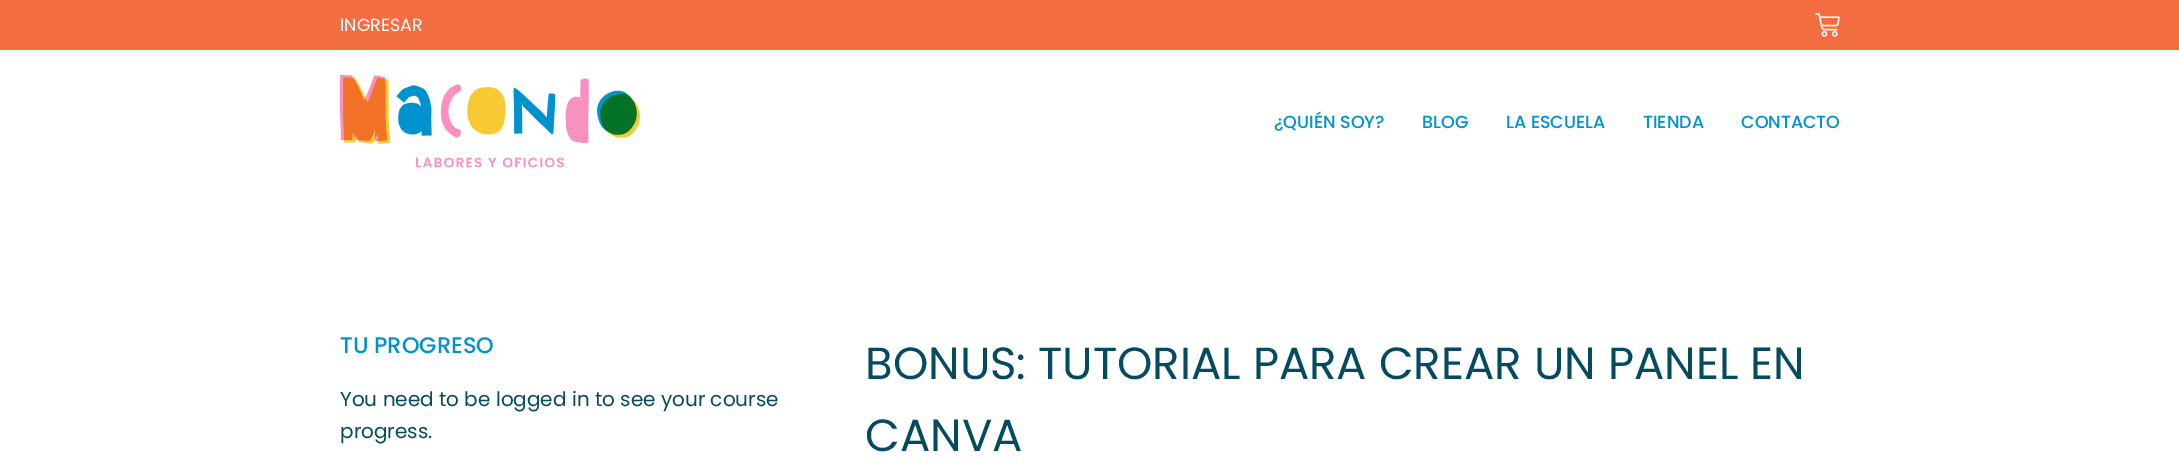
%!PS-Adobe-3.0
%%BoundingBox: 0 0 2179 470
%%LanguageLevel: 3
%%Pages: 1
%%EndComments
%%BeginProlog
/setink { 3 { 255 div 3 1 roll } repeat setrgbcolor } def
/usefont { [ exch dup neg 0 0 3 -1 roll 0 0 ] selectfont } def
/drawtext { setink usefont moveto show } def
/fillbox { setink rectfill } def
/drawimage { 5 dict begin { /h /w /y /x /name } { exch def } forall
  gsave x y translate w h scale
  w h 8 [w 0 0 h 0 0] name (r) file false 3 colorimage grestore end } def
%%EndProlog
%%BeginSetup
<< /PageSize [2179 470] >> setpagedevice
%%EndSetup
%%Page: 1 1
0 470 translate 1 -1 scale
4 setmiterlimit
0 0 2179 470 255 255 255 fillbox
0 0 2179 50 242 110 64 fillbox
(INGRESAR) 340 31 /Poppins-Regular 17.5 255 255 255 drawtext
(assets/img1.rgb) 1815 13 25 24 drawimage
(assets/img2.rgb) 340 75 300 93 drawimage
(¿QUIÉN SOY?) 1274 128 /Poppins-Medium 17.5 0 146 205 drawtext
(BLOG) 1422 128 /Poppins-Medium 17.5 0 146 205 drawtext
(LA ESCUELA) 1506 128 /Poppins-Medium 17.5 0 146 205 drawtext
(TIENDA) 1643 128 /Poppins-Medium 17.5 0 146 205 drawtext
(CONTACTO) 1741 128 /Poppins-Medium 17.5 0 146 205 drawtext
(TU PROGRESO) 340 353 /Poppins-Medium 22.5 0 146 205 drawtext
(You need to be logged in to see your course) 340 406 /Poppins-Regular 20 4 75 96 drawtext
(progress.) 340 438 /Poppins-Regular 20 4 75 96 drawtext
(BONUS: TUTORIAL PARA CREAR UN PANEL EN) 865 379 /Poppins-Regular 45 4 75 96 drawtext
(CANVA) 865 451 /Poppins-Regular 45 4 75 96 drawtext
showpage
%%EOF
